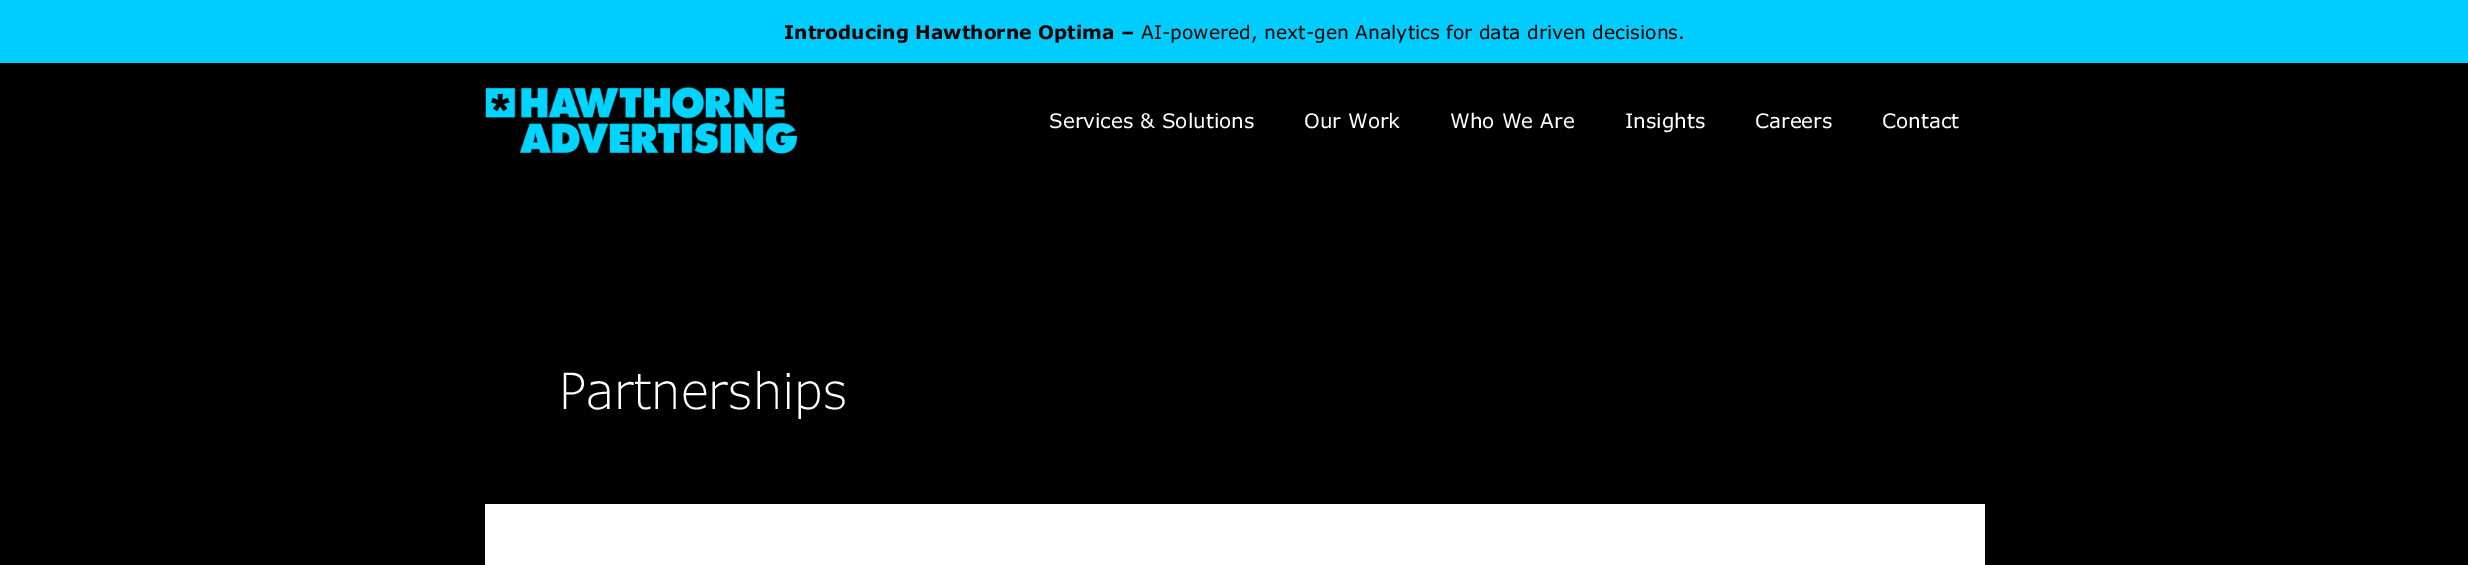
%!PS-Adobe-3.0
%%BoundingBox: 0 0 2468 565
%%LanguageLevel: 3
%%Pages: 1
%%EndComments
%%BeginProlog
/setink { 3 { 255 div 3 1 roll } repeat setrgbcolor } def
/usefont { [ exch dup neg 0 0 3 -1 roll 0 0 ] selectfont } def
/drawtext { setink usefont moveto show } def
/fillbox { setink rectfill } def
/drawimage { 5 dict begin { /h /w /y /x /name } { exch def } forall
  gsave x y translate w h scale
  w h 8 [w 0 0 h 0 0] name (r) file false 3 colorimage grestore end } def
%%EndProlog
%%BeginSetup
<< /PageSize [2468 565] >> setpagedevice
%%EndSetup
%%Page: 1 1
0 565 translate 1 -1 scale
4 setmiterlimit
0 0 2468 565 0 0 0 fillbox
0 0 2468 63 0 205 254 fillbox
(Introducing Hawthorne Optima –) 784 39 /Verdana-Bold 18.75 0 0 0 drawtext
(AI-powered, next-gen Analytics for data driven decisions.) 1141 39 /Verdana-Regular 18.75 0 0 0 drawtext
(assets/img1.rgb) 485 87 313 67 drawimage
(Services & Solutions) 1049 128 /Verdana-Regular 20 255 255 255 drawtext
(Our Work) 1304 128 /Verdana-Regular 20 255 255 255 drawtext
(Who We Are) 1450 128 /Verdana-Regular 20 255 255 255 drawtext
(Insights) 1625 128 /Verdana-Regular 20 255 255 255 drawtext
(Careers) 1755 128 /Verdana-Regular 20 255 255 255 drawtext
(Contact) 1882 128 /Verdana-Regular 20 255 255 255 drawtext
(Partnerships) 559 409 /Verdana-Light 50 255 255 255 drawtext
485 504 1500 61 255 255 255 fillbox
showpage
%%EOF
